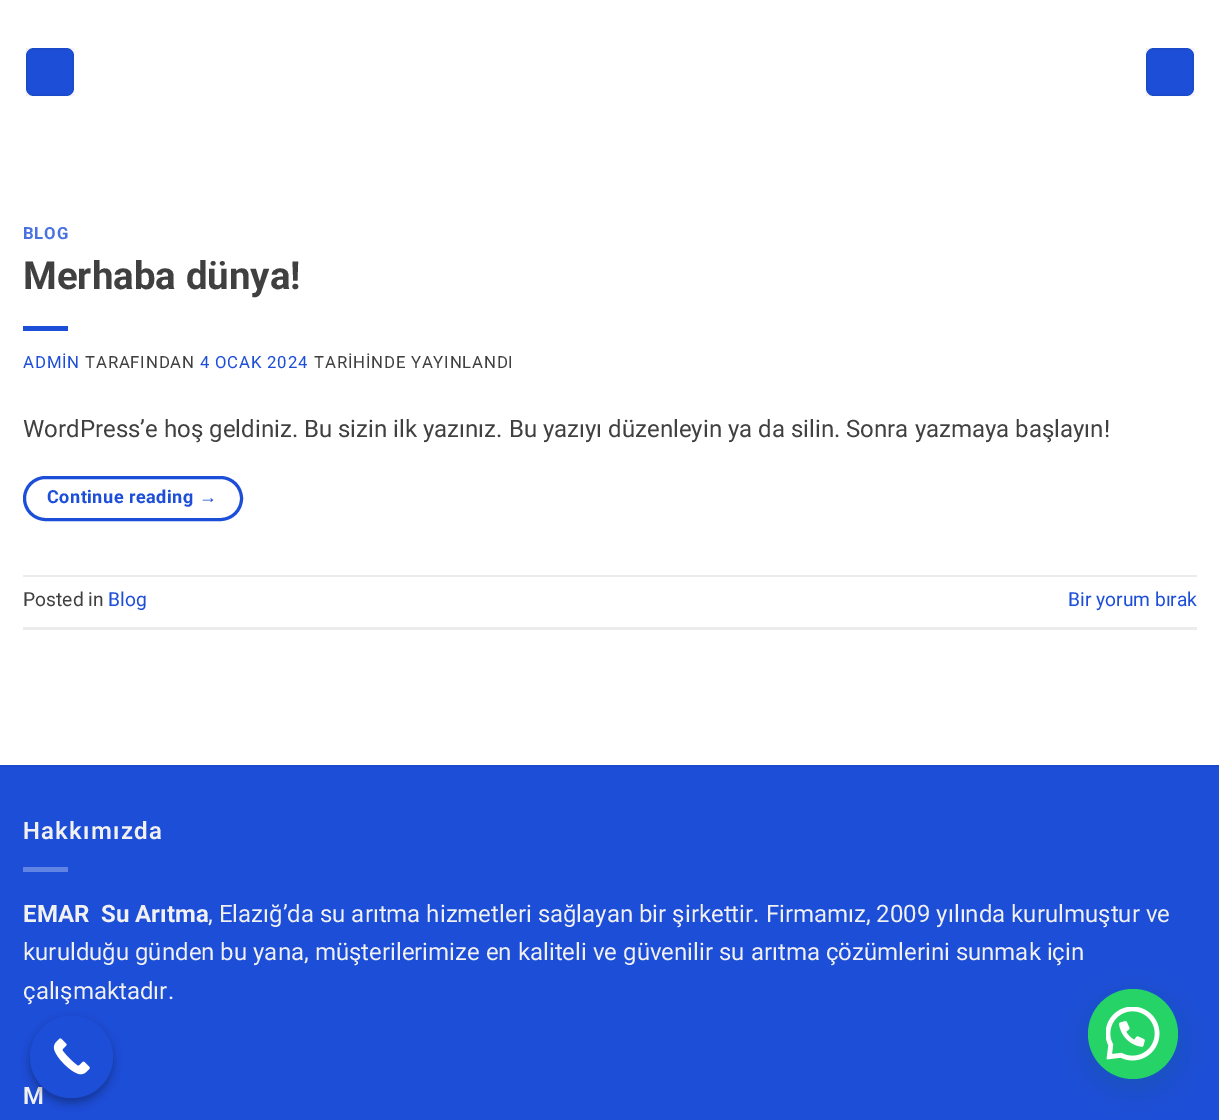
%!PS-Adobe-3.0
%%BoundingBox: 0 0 1219 1120
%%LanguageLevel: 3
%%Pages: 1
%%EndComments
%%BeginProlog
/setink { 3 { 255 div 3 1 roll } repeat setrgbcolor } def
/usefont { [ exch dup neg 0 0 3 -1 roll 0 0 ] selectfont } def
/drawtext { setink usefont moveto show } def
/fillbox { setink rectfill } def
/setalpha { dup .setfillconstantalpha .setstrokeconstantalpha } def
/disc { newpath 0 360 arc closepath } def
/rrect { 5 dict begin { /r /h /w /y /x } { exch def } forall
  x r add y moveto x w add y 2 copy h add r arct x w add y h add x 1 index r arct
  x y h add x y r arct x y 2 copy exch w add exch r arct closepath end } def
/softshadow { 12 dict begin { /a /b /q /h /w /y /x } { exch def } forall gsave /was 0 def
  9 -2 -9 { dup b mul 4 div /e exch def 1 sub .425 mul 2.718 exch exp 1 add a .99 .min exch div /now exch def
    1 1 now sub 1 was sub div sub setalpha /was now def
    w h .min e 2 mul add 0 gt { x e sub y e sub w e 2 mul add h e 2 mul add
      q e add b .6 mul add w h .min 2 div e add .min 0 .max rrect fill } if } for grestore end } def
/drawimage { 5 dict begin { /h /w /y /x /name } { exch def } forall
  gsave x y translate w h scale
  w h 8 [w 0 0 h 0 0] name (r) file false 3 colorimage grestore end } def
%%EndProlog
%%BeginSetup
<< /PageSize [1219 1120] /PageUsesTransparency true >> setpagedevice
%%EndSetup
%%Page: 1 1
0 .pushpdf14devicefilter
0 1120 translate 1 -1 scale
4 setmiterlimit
0 0 1219 1120 255 255 255 fillbox
29 78 216 setink
26 48 48 48 8 rrect fill
0.05 setalpha
0 0 0 setink
2 setlinewidth
27 49 46 46 rectstroke
1 setalpha
29 78 216 setink
1146 48 48 48 8 rrect fill
0.05 setalpha
0 0 0 setink
1147 49 46 46 rectstroke
/Roboto-Bold 16.75 usefont
1 setalpha
74 113 224 setink
23 239 moveto 0.8 0 (BLOG) ashow
(Merhaba dünya!) 23 289 /Roboto-Bold 38.5 64 64 64 drawtext
23 326 45 5 29 78 216 fillbox
/Roboto-Regular 16.75 usefont
23 368 moveto 0.8 0 (ADMİN) ashow
64 64 64 setink
85 368 moveto 0.8 0 (TARAFINDAN) ashow
29 78 216 setink
200 368 moveto 0.8 0 (4 OCAK 2024) ashow
64 64 64 setink
314 368 moveto 0.8 0 (TARİHİNDE YAYINLANDI) ashow
(WordPress’e hoş geldiniz. Bu sizin ilk yazınız. Bu yazıyı düzenleyin ya da silin. Sonra yazmaya başlayın!) 23 437 /Roboto-Regular 24 64 64 64 drawtext
29 78 216 setink
3 setlinewidth
24.5 477.5 217 42 21 rrect stroke
/Roboto-Bold 18 usefont
47 503 moveto 0.5 0 (Continue reading) ashow
/LiberationSans-Bold 18 usefont
199 503 moveto 0.5 0 (→) ashow
23 575 1174 2 236 236 236 fillbox
23 627 1174 3 236 236 236 fillbox
(Posted in) 23 606 /Roboto-Regular 19.25 64 64 64 drawtext
(Blog) 108 606 /Roboto-Regular 19.25 29 78 216 drawtext
(Bir yorum bırak) 1068 606 /Roboto-Regular 19.25 29 78 216 drawtext
0 767 1219 353 29 78 216 fillbox
0 765 1219 2 28 74 205 fillbox
/Roboto-SemiBold 24 usefont
241 241 241 setink
23 839 moveto 1.25 0 (Hakkımızda) ashow
23 867 45 5 97 131 228 fillbox
(EMAR  Su Arıtma) 23 922 /Roboto-Bold 24 241 241 241 drawtext
(, Elazığ’da su arıtma hizmetleri sağlayan bir şirkettir. Firmamız, 2009 yılında kurulmuştur ve) 208 922 /Roboto-Regular 24 241 241 241 drawtext
(kurulduğu günden bu yana, müşterilerimize en kaliteli ve güvenilir su arıtma çözümlerini sunmak için) 23 960 /Roboto-Regular 24 241 241 241 drawtext
(çalışmaktadır.) 23 999 /Roboto-Regular 24 241 241 241 drawtext
/Roboto-SemiBold 24 usefont
23 1104 moveto 1.25 0 (M) ashow
0 0 0 setink
30 1020 83 83 41.5 4.5 0.3 softshadow
29 78 216 setink
30 1016 83 82 41 rrect fill
(assets/img1.rgb) 53 1038 37 37 drawimage
7 94 84 setink
1089 998 90 90 45 18 0.24 softshadow
37 211 102 setink
1133 1034 45 disc fill
(assets/img2.rgb) 1106 1007 54 54 drawimage
.poppdf14devicefilter showpage
%%EOF
